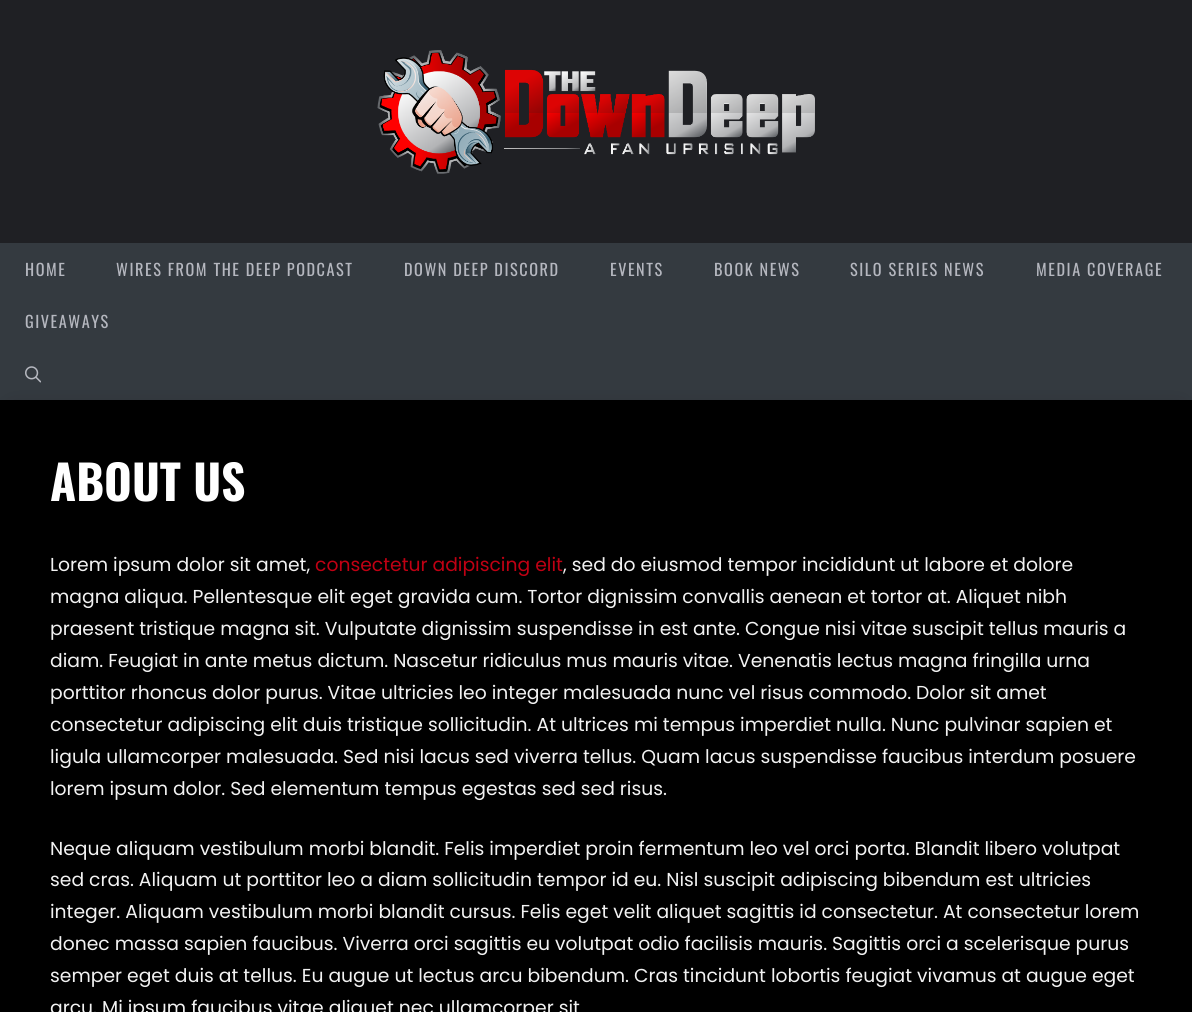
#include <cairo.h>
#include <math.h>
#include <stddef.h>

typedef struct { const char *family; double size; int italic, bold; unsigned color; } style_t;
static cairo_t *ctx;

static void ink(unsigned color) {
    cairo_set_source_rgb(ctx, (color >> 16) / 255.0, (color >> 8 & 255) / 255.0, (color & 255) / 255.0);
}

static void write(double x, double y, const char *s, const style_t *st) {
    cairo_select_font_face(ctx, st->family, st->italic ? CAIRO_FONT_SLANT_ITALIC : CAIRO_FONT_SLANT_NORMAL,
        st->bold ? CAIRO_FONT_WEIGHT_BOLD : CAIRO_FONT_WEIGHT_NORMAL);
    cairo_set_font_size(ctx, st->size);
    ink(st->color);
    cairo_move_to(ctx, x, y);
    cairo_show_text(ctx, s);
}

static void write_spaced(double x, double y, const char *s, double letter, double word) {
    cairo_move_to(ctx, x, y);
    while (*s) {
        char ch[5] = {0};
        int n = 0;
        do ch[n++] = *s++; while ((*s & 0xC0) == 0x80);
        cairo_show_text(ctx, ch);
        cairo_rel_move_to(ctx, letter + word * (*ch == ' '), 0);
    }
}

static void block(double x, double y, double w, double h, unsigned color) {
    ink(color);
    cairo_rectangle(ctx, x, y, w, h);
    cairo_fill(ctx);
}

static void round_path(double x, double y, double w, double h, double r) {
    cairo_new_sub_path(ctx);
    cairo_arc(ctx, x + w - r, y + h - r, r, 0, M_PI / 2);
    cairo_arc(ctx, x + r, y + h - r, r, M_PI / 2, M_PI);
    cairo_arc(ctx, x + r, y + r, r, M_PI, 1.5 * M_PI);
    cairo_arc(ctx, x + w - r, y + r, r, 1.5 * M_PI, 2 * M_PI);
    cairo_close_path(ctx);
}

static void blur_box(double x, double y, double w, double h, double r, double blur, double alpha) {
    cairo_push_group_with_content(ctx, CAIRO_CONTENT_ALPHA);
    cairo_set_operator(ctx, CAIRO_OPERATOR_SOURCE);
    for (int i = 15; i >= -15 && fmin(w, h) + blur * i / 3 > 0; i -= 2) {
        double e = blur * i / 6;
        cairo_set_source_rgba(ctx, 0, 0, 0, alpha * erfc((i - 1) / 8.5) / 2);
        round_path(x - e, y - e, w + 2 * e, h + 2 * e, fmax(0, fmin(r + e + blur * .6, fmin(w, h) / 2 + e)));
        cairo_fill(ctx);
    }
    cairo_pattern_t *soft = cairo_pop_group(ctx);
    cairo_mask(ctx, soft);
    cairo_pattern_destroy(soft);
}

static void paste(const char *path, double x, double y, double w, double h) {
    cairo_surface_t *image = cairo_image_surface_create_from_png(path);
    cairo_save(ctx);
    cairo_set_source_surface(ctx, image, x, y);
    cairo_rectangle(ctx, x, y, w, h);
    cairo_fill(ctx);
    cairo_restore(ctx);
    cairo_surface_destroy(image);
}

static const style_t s1 = {"Oswald", 47.5, 0, 1, 0xffffff};
static const style_t s2 = {"Poppins", 18.75, 0, 0, 0xf2f2f2};
static const style_t s3 = {"Poppins", 18.75, 0, 0, 0xc00013};

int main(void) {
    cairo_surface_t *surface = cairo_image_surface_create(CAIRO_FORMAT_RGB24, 1192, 1012);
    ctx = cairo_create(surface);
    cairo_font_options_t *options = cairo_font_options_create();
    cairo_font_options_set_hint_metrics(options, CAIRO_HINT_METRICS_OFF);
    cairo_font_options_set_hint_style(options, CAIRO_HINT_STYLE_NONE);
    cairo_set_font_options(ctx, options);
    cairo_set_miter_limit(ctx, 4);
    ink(0x343a40);
    cairo_paint(ctx);
    block(0, 0, 1192, 243, 0x1f2024);
    paste("pic1.png", 377, 50, 438, 124);
    cairo_select_font_face(ctx, "Oswald", CAIRO_FONT_SLANT_NORMAL, CAIRO_FONT_WEIGHT_NORMAL);
    cairo_set_font_size(ctx, 16.25);
    ink(0xb5b7bf);
    write_spaced(25, 276, "HOME", 1.55, 0);
    write_spaced(116, 276, "WIRES FROM THE DEEP PODCAST", 1.55, 0);
    write_spaced(404, 276, "DOWN DEEP DISCORD", 1.55, 0);
    write_spaced(610, 276, "EVENTS", 1.55, 0);
    write_spaced(714, 276, "BOOK NEWS", 1.55, 0);
    write_spaced(850, 276, "SILO SERIES NEWS", 1.55, 0);
    write_spaced(1036, 276, "MEDIA COVERAGE", 1.55, 0);
    write_spaced(25, 328, "GIVEAWAYS", 1.55, 0);
    ink(0x000000);
    blur_box(13, 413, 1167, 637, 0, 12.5, 0.3);
    paste("pic2.png", 25, 366, 16, 17);
    block(0, 400, 1192, 612, 0x000000);
    write(50, 501, "ABOUT US", &s1);
    write(50, 571, "Lorem ipsum dolor sit amet,", &s2);
    write(315, 571, "consectetur adipiscing elit", &s3);
    write(563, 571, ", sed do eiusmod tempor incididunt ut labore et dolore", &s2);
    write(50, 603, "magna aliqua. Pellentesque elit eget gravida cum. Tortor dignissim convallis aenean et tortor at. Aliquet nibh", &s2);
    write(50, 635, "praesent tristique magna sit. Vulputate dignissim suspendisse in est ante. Congue nisi vitae suscipit tellus mauris a", &s2);
    write(50, 667, "diam. Feugiat in ante metus dictum. Nascetur ridiculus mus mauris vitae. Venenatis lectus magna fringilla urna", &s2);
    write(50, 699, "porttitor rhoncus dolor purus. Vitae ultricies leo integer malesuada nunc vel risus commodo. Dolor sit amet", &s2);
    write(50, 731, "consectetur adipiscing elit duis tristique sollicitudin. At ultrices mi tempus imperdiet nulla. Nunc pulvinar sapien et", &s2);
    write(50, 763, "ligula ullamcorper malesuada. Sed nisi lacus sed viverra tellus. Quam lacus suspendisse faucibus interdum posuere", &s2);
    write(50, 795, "lorem ipsum dolor. Sed elementum tempus egestas sed sed risus.", &s2);
    write(50, 855, "Neque aliquam vestibulum morbi blandit. Felis imperdiet proin fermentum leo vel orci porta. Blandit libero volutpat", &s2);
    write(50, 886, "sed cras. Aliquam ut porttitor leo a diam sollicitudin tempor id eu. Nisl suscipit adipiscing bibendum est ultricies", &s2);
    write(50, 918, "integer. Aliquam vestibulum morbi blandit cursus. Felis eget velit aliquet sagittis id consectetur. At consectetur lorem", &s2);
    write(50, 950, "donec massa sapien faucibus. Viverra orci sagittis eu volutpat odio facilisis mauris. Sagittis orci a scelerisque purus", &s2);
    write(50, 982, "semper eget duis at tellus. Eu augue ut lectus arcu bibendum. Cras tincidunt lobortis feugiat vivamus at augue eget", &s2);
    write(50, 1014, "arcu. Mi ipsum faucibus vitae aliquet nec ullamcorper sit", &s2);
    cairo_surface_write_to_png(surface, "screenshot.png");
    cairo_font_options_destroy(options);
    cairo_destroy(ctx);
    cairo_surface_destroy(surface);
    return 0;
}
